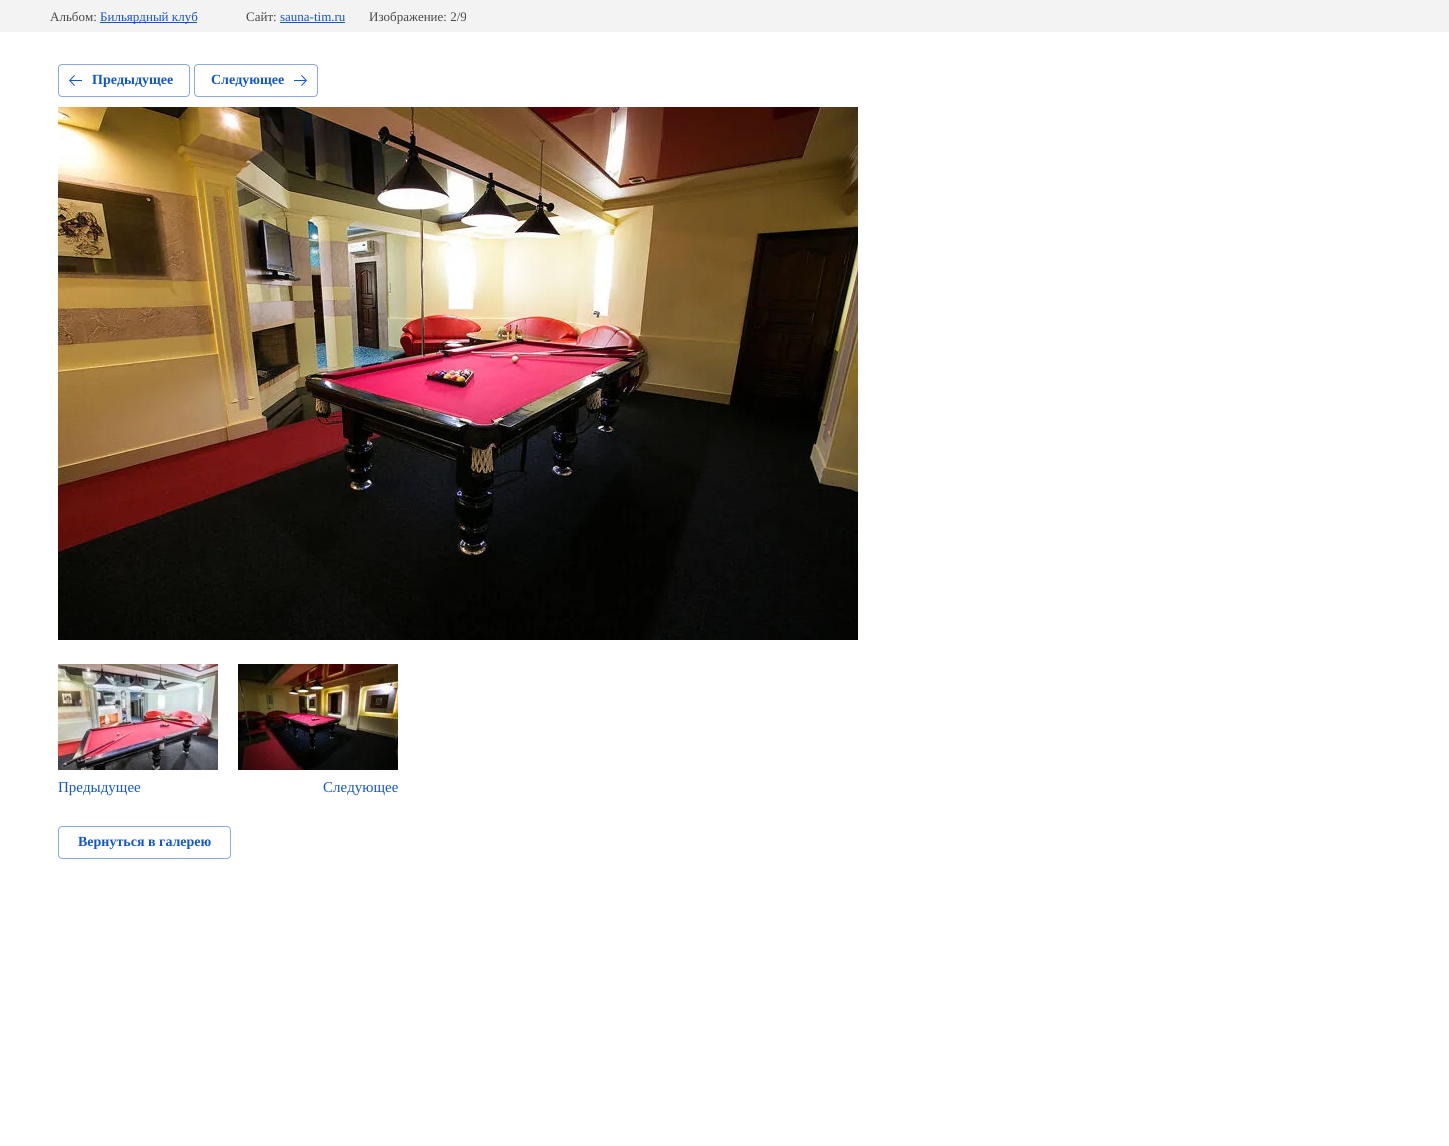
#include <cairo.h>
#include <math.h>
#include <stddef.h>

typedef struct { const char *family; double size; int italic, bold; unsigned color; } style_t;
static cairo_t *ctx;

static void ink(unsigned color) {
    cairo_set_source_rgb(ctx, (color >> 16) / 255.0, (color >> 8 & 255) / 255.0, (color & 255) / 255.0);
}

static void write(double x, double y, const char *s, const style_t *st) {
    cairo_select_font_face(ctx, st->family, st->italic ? CAIRO_FONT_SLANT_ITALIC : CAIRO_FONT_SLANT_NORMAL,
        st->bold ? CAIRO_FONT_WEIGHT_BOLD : CAIRO_FONT_WEIGHT_NORMAL);
    cairo_set_font_size(ctx, st->size);
    ink(st->color);
    cairo_move_to(ctx, x, y);
    cairo_show_text(ctx, s);
}

static void block(double x, double y, double w, double h, unsigned color) {
    ink(color);
    cairo_rectangle(ctx, x, y, w, h);
    cairo_fill(ctx);
}

static void round_path(double x, double y, double w, double h, double r) {
    cairo_new_sub_path(ctx);
    cairo_arc(ctx, x + w - r, y + h - r, r, 0, M_PI / 2);
    cairo_arc(ctx, x + r, y + h - r, r, M_PI / 2, M_PI);
    cairo_arc(ctx, x + r, y + r, r, M_PI, 1.5 * M_PI);
    cairo_arc(ctx, x + w - r, y + r, r, 1.5 * M_PI, 2 * M_PI);
    cairo_close_path(ctx);
}

static void paste(const char *path, double x, double y, double w, double h) {
    cairo_surface_t *image = cairo_image_surface_create_from_png(path);
    cairo_save(ctx);
    cairo_set_source_surface(ctx, image, x, y);
    cairo_rectangle(ctx, x, y, w, h);
    cairo_fill(ctx);
    cairo_restore(ctx);
    cairo_surface_destroy(image);
}

static const style_t s1 = {"Liberation Serif", 13, 0, 0, 0x484848};
static const style_t s2 = {"Liberation Serif", 13, 0, 0, 0x1155cc};
static const style_t s3 = {"Liberation Serif", 14, 0, 1, 0x1155cc};
static const style_t s4 = {"Liberation Serif", 15, 0, 0, 0x1155cc};

int main(void) {
    cairo_surface_t *surface = cairo_image_surface_create(CAIRO_FORMAT_RGB24, 1449, 1146);
    ctx = cairo_create(surface);
    cairo_font_options_t *options = cairo_font_options_create();
    cairo_font_options_set_hint_metrics(options, CAIRO_HINT_METRICS_OFF);
    cairo_font_options_set_hint_style(options, CAIRO_HINT_STYLE_NONE);
    cairo_set_font_options(ctx, options);
    cairo_set_miter_limit(ctx, 4);
    ink(0xffffff);
    cairo_paint(ctx);
    block(0, 0, 1449, 32, 0xf3f3f3);
    write(50, 21, "Альбом:", &s1);
    block(100, 22, 97, 1, 0x1155cc);
    write(100, 21, "Бильярдный клуб", &s2);
    write(246, 21, "Сайт:", &s1);
    write(280, 21, "sauna-tim.ru", &s2);
    block(280, 22, 65, 1, 0x1155cc);
    write(369, 21, "Изображение: 2/9", &s1);
    round_path(58.5, 64.5, 131, 32, 3.5);
    ink(0x88aae6);
    cairo_set_line_width(ctx, 1);
    cairo_stroke(ctx);
    paste("pic1.png", 69, 75, 13, 11);
    write(92, 84, "Предыдущее", &s3);
    round_path(194.5, 64.5, 123, 32, 3.5);
    ink(0x88aae6);
    cairo_stroke(ctx);
    write(211, 84, "Следующее", &s3);
    paste("pic2.png", 294, 75, 13, 11);
    paste("pic3.png", 58, 107, 800, 533);
    paste("pic4.png", 58, 664, 160, 106);
    write(58, 792, "Предыдущее", &s4);
    paste("pic5.png", 238, 664, 160, 106);
    write(323, 792, "Следующее", &s4);
    round_path(58.5, 826.5, 172, 32, 3.5);
    ink(0x88aae6);
    cairo_stroke(ctx);
    write(78, 846, "Вернуться в галерею", &s3);
    cairo_surface_write_to_png(surface, "screenshot.png");
    cairo_font_options_destroy(options);
    cairo_destroy(ctx);
    cairo_surface_destroy(surface);
    return 0;
}
